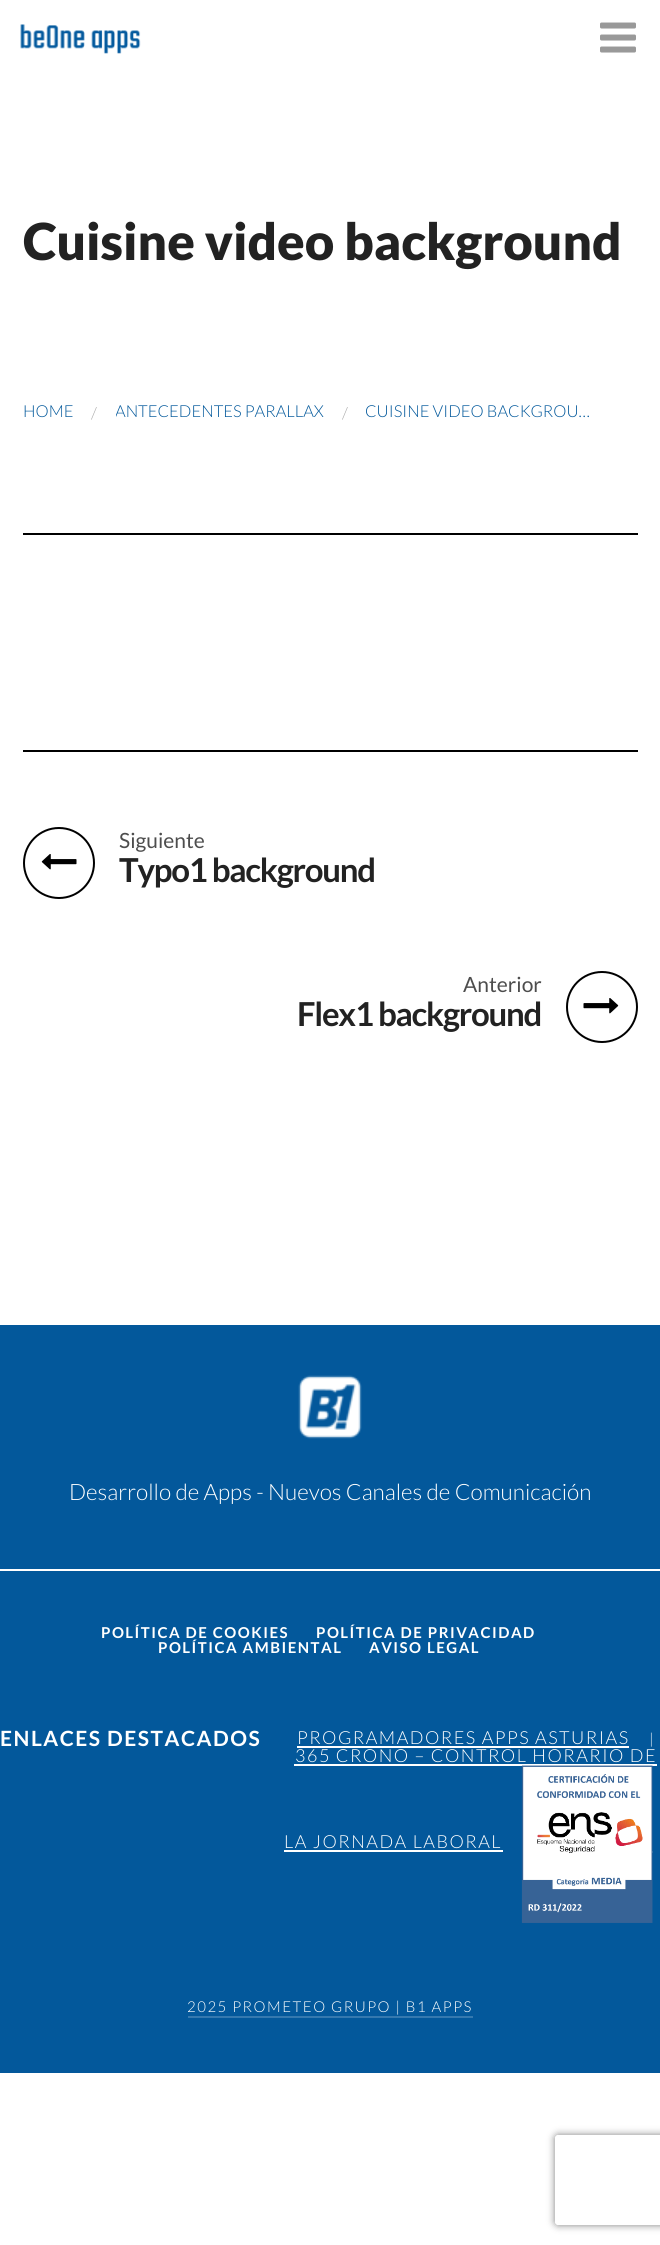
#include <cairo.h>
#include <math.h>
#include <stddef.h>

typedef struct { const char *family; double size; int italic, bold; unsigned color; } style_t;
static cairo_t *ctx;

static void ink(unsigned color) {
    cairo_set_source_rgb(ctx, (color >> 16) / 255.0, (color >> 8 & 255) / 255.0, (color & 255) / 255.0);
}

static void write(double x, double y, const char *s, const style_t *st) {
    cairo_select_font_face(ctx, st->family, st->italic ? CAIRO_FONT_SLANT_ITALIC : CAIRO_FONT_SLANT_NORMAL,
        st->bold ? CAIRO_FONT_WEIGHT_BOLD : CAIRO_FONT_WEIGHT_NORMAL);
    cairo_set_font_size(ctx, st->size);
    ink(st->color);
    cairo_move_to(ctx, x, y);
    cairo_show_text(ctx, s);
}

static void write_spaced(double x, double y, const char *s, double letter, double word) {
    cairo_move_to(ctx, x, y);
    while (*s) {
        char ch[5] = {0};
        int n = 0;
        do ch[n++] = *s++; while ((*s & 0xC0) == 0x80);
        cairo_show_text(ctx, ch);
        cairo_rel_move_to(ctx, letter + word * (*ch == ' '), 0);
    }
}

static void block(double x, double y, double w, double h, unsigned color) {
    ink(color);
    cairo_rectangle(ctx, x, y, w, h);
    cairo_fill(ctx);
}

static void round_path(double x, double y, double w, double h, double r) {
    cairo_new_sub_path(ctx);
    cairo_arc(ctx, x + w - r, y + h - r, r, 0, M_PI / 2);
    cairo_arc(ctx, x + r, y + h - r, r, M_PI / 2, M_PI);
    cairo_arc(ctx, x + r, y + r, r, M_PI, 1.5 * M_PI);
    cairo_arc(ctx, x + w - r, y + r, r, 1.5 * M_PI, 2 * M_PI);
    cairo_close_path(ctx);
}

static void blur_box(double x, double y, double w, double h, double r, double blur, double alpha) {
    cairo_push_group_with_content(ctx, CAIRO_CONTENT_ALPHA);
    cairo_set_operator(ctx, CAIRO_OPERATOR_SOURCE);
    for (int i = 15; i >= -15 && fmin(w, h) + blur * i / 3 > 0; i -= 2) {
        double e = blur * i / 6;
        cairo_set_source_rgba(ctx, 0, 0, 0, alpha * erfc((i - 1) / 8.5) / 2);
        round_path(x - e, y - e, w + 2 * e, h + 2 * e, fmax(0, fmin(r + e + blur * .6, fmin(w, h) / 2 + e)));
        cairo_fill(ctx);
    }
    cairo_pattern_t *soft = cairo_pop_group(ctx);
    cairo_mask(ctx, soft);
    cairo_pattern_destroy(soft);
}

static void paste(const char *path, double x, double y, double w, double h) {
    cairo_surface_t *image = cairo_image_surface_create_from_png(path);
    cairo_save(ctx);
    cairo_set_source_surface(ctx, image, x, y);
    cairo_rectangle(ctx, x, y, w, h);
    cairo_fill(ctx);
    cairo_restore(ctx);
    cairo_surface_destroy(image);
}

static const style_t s1 = {"Lato Black", 51, 0, 0, 0x222222};
static const style_t s2 = {"Lato Light", 16.5, 0, 0, 0x02589b};
static const style_t s3 = {"Lato Light", 16.5, 0, 0, 0xaaaaaa};
static const style_t s4 = {"Lato", 21, 0, 0, 0x4d4d4d};
static const style_t s5 = {"Lato Light", 22.5, 0, 0, 0xffffff};

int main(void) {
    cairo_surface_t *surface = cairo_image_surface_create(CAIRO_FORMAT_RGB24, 660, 2245);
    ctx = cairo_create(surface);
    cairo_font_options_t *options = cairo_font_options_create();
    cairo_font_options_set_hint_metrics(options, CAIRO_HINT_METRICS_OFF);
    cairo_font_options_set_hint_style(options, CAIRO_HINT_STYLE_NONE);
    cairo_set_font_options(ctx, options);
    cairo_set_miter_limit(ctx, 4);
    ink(0xffffff);
    cairo_paint(ctx);
    paste("pic1.png", 20, 24, 121, 30);
    paste("pic2.png", 600, 22, 36, 31);
    write(23, 260, "Cuisine video background", &s1);
    write(23, 417, "HOME", &s2);
    write(91, 419, "/", &s3);
    cairo_save(ctx);
    cairo_rectangle(ctx, 116, 395, 208, 33);
    cairo_clip(ctx);
    write(115, 417, "ANTECEDENTES PARALLAX", &s2);
    cairo_restore(ctx);
    write(342, 419, "/", &s3);
    write(365, 417, "CUISINE VIDEO BACKGROU…", &s2);
    block(23, 533, 615, 2, 0x000000);
    block(23, 750, 615, 2, 0x000000);
    cairo_new_path(ctx);
    cairo_arc(ctx, 59, 863, 35, 0, 2 * M_PI);
    cairo_stroke(ctx);
    paste("pic3.png", 41, 854, 36, 16);
    write(119, 848, "Siguiente", &s4);
    cairo_select_font_face(ctx, "Lato", CAIRO_FONT_SLANT_NORMAL, CAIRO_FONT_WEIGHT_BOLD);
    cairo_set_font_size(ctx, 33);
    ink(0x222222);
    write_spaced(119, 882, "Typo1 background", -1.25, 0);
    write(463, 992, "Anterior", &s4);
    cairo_select_font_face(ctx, "Lato", CAIRO_FONT_SLANT_NORMAL, CAIRO_FONT_WEIGHT_BOLD);
    cairo_set_font_size(ctx, 33);
    ink(0x222222);
    write_spaced(297, 1026, "Flex1 background", -1.25, 0);
    cairo_new_path(ctx);
    cairo_arc(ctx, 602, 1007, 35, 0, 2 * M_PI);
    ink(0x000000);
    cairo_stroke(ctx);
    paste("pic4.png", 583, 998, 36, 16);
    block(0, 1325, 660, 748, 0x03589b);
    paste("pic5.png", 298, 1375, 64, 64);
    write(69, 1500, "Desarrollo de Apps - Nuevos Canales de Comunicación", &s5);
    block(0, 1569, 660, 2, 0xffffff);
    cairo_select_font_face(ctx, "Lato", CAIRO_FONT_SLANT_NORMAL, CAIRO_FONT_WEIGHT_BOLD);
    cairo_set_font_size(ctx, 15);
    write_spaced(101, 1638, "POLÍTICA DE COOKIES", 1.5, 0);
    write_spaced(316, 1638, "POLÍTICA DE PRIVACIDAD", 1.5, 0);
    write_spaced(158, 1653, "POLÍTICA AMBIENTAL", 1.5, 0);
    write_spaced(369, 1653, "AVISO LEGAL", 1.5, 0);
    cairo_set_font_size(ctx, 21);
    write_spaced(0, 1746, "ENLACES DESTACADOS", 1.5, 0);
    cairo_select_font_face(ctx, "Lato Light", CAIRO_FONT_SLANT_NORMAL, CAIRO_FONT_WEIGHT_NORMAL);
    cairo_set_font_size(ctx, 18);
    write_spaced(297, 1744, "PROGRAMADORES APPS ASTURIAS", 1.5, 0);
    block(297, 1746, 332, 2, 0xffffff);
    cairo_set_font_size(ctx, 15);
    write_spaced(649, 1744, "|", 1.5, 0);
    cairo_set_font_size(ctx, 18);
    write_spaced(295, 1762, "365 CRONO – CONTROL HORARIO DE", 1.5, 0);
    block(294, 1764, 363, 2, 0xffffff);
    write_spaced(284, 1848, "LA JORNADA LABORAL", 1.5, 0);
    block(284, 1850, 219, 2, 0xffffff);
    block(652, 1851, 1, 2, 0x3579af);
    paste("pic6.png", 521, 1765, 132, 158);
    cairo_set_font_size(ctx, 15);
    ink(0xffffff);
    write_spaced(187, 2012, "2025 PROMETEO GRUPO | B1 APPS", 1.5, 0);
    block(188, 2016, 285, 2, 0x3579af);
    cairo_save(ctx);
    cairo_set_fill_rule(ctx, CAIRO_FILL_RULE_EVEN_ODD);
    cairo_new_path(ctx);
    cairo_move_to(ctx, 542, 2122);
    cairo_line_to(ctx, 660, 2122);
    cairo_line_to(ctx, 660, 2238);
    cairo_line_to(ctx, 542, 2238);
    cairo_close_path(ctx);
    cairo_move_to(ctx, 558, 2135);
    cairo_line_to(ctx, 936, 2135);
    cairo_curve_to(ctx, 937.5, 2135, 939, 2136.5, 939, 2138);
    cairo_line_to(ctx, 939, 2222);
    cairo_curve_to(ctx, 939, 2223.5, 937.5, 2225, 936, 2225);
    cairo_line_to(ctx, 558, 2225);
    cairo_curve_to(ctx, 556.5, 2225, 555, 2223.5, 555, 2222);
    cairo_line_to(ctx, 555, 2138);
    cairo_curve_to(ctx, 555, 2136.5, 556.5, 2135, 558, 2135);
    cairo_close_path(ctx);
    cairo_clip(ctx);
    ink(0x808080);
    blur_box(555, 2135, 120, 90, 3, 4, 1);
    cairo_restore(ctx);
    cairo_surface_write_to_png(surface, "screenshot.png");
    cairo_font_options_destroy(options);
    cairo_destroy(ctx);
    cairo_surface_destroy(surface);
    return 0;
}
